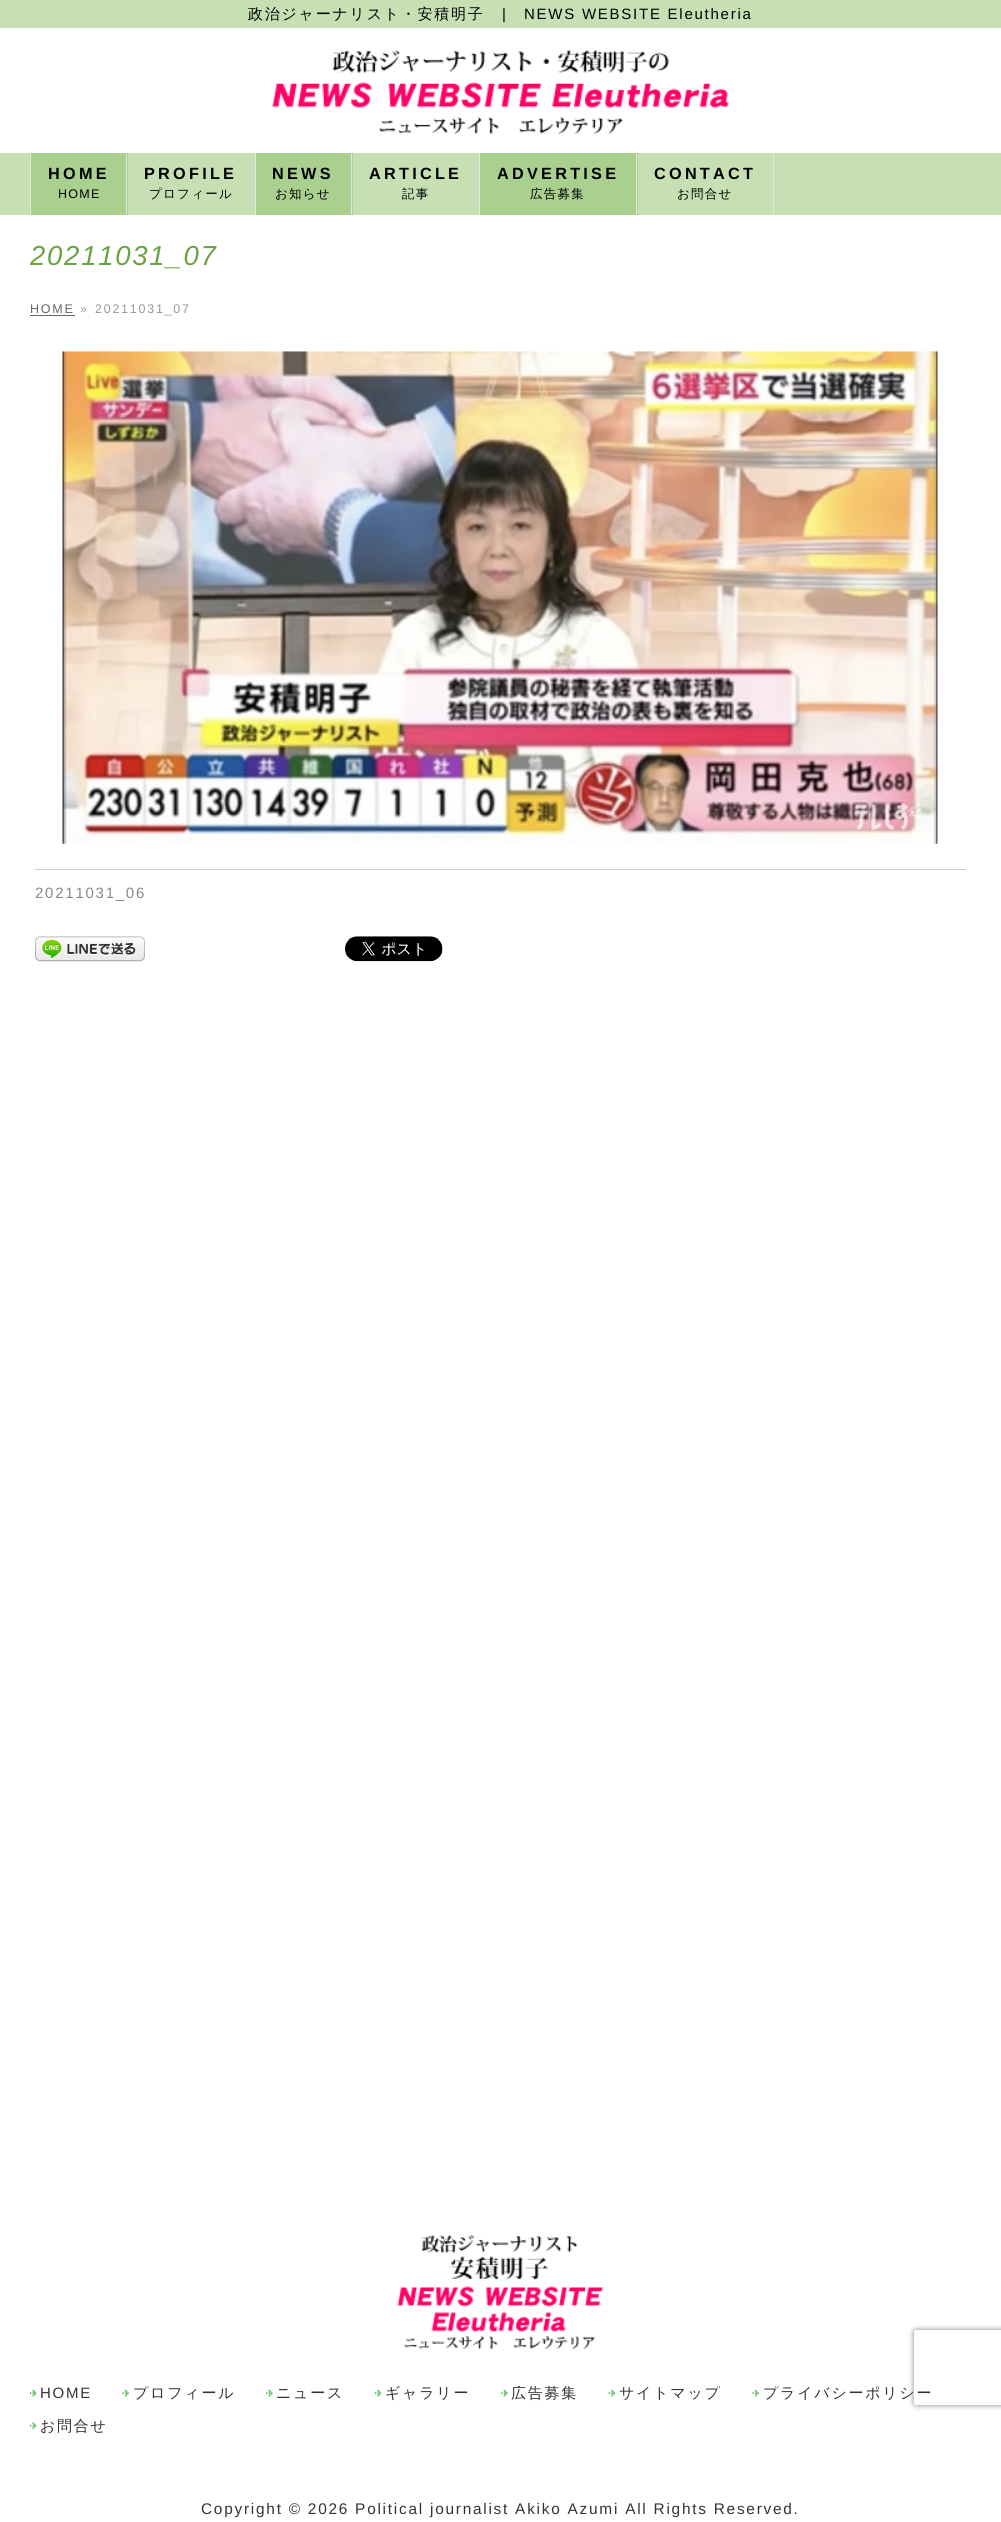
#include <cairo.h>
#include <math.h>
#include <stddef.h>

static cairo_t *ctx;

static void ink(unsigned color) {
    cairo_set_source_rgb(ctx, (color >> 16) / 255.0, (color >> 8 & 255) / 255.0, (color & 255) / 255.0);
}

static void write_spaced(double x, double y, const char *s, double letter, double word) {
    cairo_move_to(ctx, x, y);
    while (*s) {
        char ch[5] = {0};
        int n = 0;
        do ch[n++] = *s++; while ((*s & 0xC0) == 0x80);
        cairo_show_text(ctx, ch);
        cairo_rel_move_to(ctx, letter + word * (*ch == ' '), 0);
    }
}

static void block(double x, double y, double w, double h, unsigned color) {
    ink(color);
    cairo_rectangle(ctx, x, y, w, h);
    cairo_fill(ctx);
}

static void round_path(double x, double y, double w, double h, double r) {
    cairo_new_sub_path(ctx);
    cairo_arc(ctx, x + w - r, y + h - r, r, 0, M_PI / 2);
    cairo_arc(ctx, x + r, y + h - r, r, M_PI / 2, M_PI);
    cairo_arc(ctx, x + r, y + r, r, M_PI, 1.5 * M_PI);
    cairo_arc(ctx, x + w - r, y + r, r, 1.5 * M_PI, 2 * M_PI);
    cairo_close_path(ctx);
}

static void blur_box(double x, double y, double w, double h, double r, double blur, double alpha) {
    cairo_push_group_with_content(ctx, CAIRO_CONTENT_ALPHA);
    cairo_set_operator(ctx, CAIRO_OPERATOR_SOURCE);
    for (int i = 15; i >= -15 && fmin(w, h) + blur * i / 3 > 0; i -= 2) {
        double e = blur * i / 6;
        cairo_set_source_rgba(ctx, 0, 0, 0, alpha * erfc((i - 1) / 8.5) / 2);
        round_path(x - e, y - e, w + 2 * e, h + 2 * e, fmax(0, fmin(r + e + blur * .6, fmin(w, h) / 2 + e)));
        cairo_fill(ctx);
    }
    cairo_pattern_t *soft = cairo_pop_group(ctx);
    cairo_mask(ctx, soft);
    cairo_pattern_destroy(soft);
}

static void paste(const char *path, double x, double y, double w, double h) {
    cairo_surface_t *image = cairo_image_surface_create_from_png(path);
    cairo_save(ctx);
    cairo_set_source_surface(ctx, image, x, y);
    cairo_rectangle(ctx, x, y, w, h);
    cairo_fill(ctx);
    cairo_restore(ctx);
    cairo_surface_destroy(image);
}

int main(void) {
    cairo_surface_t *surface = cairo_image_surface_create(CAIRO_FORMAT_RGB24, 1001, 2522);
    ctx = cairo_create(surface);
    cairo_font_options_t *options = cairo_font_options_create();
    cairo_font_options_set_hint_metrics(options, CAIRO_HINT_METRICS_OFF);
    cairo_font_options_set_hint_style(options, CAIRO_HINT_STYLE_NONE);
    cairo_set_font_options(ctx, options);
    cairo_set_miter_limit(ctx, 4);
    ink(0xffffff);
    cairo_paint(ctx);
    block(0, 0, 1001, 28, 0xc6e0b4);
    cairo_select_font_face(ctx, "WenQuanYi Zen Hei Medium", CAIRO_FONT_SLANT_NORMAL, CAIRO_FONT_WEIGHT_NORMAL);
    cairo_set_font_size(ctx, 15);
    ink(0x000000);
    write_spaced(248, 19, "政治ジャーナリスト・安積明子", 1.75, 0);
    cairo_select_font_face(ctx, "Liberation Sans", CAIRO_FONT_SLANT_NORMAL, CAIRO_FONT_WEIGHT_NORMAL);
    write_spaced(502, 19, "|", 1.75, 0);
    write_spaced(524, 19, "NEWS WEBSITE Eleutheria", 1.75, 0);
    paste("pic1.png", 272, 50, 457, 84);
    block(0, 153, 1001, 62, 0xc6e0b4);
    block(30, 153, 1, 62, 0xe5e5e5);
    block(31, 153, 97, 62, 0xa9d08e);
    block(126, 153, 1, 62, 0xe5e5e5);
    cairo_select_font_face(ctx, "Liberation Sans", CAIRO_FONT_SLANT_NORMAL, CAIRO_FONT_WEIGHT_BOLD);
    cairo_set_font_size(ctx, 16.25);
    ink(0x000000);
    write_spaced(48, 179, "HOME", 3.25, 0);
    cairo_select_font_face(ctx, "Liberation Sans", CAIRO_FONT_SLANT_NORMAL, CAIRO_FONT_WEIGHT_NORMAL);
    cairo_set_font_size(ctx, 12.5);
    write_spaced(58, 198, "HOME", 1.25, 0);
    block(255, 153, 1, 62, 0xe5e5e5);
    cairo_select_font_face(ctx, "Liberation Sans", CAIRO_FONT_SLANT_NORMAL, CAIRO_FONT_WEIGHT_BOLD);
    cairo_set_font_size(ctx, 16.25);
    ink(0x000000);
    write_spaced(144, 179, "PROFILE", 3.25, 0);
    cairo_select_font_face(ctx, "WenQuanYi Zen Hei Medium", CAIRO_FONT_SLANT_NORMAL, CAIRO_FONT_WEIGHT_NORMAL);
    cairo_set_font_size(ctx, 12.5);
    write_spaced(149, 198, "プロフィール", 1.25, 0);
    block(256, 153, 97, 62, 0xa9d08e);
    block(351, 153, 1, 62, 0xe5e5e5);
    cairo_select_font_face(ctx, "Liberation Sans", CAIRO_FONT_SLANT_NORMAL, CAIRO_FONT_WEIGHT_BOLD);
    cairo_set_font_size(ctx, 16.25);
    ink(0x000000);
    write_spaced(272, 179, "NEWS", 3.25, 0);
    cairo_select_font_face(ctx, "WenQuanYi Zen Hei Medium", CAIRO_FONT_SLANT_NORMAL, CAIRO_FONT_WEIGHT_NORMAL);
    cairo_set_font_size(ctx, 12.5);
    write_spaced(275, 198, "お知らせ", 1.25, 0);
    block(479, 153, 1, 62, 0xe5e5e5);
    cairo_select_font_face(ctx, "Liberation Sans", CAIRO_FONT_SLANT_NORMAL, CAIRO_FONT_WEIGHT_BOLD);
    cairo_set_font_size(ctx, 16.25);
    ink(0x000000);
    write_spaced(369, 179, "ARTICLE", 3.25, 0);
    cairo_select_font_face(ctx, "WenQuanYi Zen Hei Medium", CAIRO_FONT_SLANT_NORMAL, CAIRO_FONT_WEIGHT_NORMAL);
    cairo_set_font_size(ctx, 12.5);
    write_spaced(402, 198, "記事", 1.25, 0);
    block(480, 153, 158, 62, 0xa9d08e);
    block(636, 153, 1, 62, 0xe5e5e5);
    cairo_select_font_face(ctx, "Liberation Sans", CAIRO_FONT_SLANT_NORMAL, CAIRO_FONT_WEIGHT_BOLD);
    cairo_set_font_size(ctx, 16.25);
    ink(0x000000);
    write_spaced(497, 179, "ADVERTISE", 3.25, 0);
    cairo_select_font_face(ctx, "WenQuanYi Zen Hei Medium", CAIRO_FONT_SLANT_NORMAL, CAIRO_FONT_WEIGHT_NORMAL);
    cairo_set_font_size(ctx, 12.5);
    write_spaced(530, 198, "広告募集", 1.25, 0);
    block(773, 153, 1, 62, 0xe5e5e5);
    cairo_select_font_face(ctx, "Liberation Sans", CAIRO_FONT_SLANT_NORMAL, CAIRO_FONT_WEIGHT_BOLD);
    cairo_set_font_size(ctx, 16.25);
    ink(0x000000);
    write_spaced(654, 179, "CONTACT", 3.25, 0);
    cairo_select_font_face(ctx, "WenQuanYi Zen Hei Medium", CAIRO_FONT_SLANT_NORMAL, CAIRO_FONT_WEIGHT_NORMAL);
    cairo_set_font_size(ctx, 12.5);
    write_spaced(677, 198, "お問合せ", 1.25, 0);
    cairo_select_font_face(ctx, "Liberation Sans", CAIRO_FONT_SLANT_ITALIC, CAIRO_FONT_WEIGHT_NORMAL);
    cairo_set_font_size(ctx, 27.5);
    ink(0x69a343);
    write_spaced(30, 265, "20211031_07", 1.75, 0);
    cairo_select_font_face(ctx, "Liberation Sans", CAIRO_FONT_SLANT_NORMAL, CAIRO_FONT_WEIGHT_NORMAL);
    cairo_set_font_size(ctx, 12.5);
    ink(0x666666);
    write_spaced(30, 313, "HOME", 1.75, 0);
    block(30, 315, 45, 1, 0x666666);
    ink(0x999999);
    write_spaced(80, 313, "»", 1.75, 0);
    write_spaced(95, 313, "20211031_07", 1.75, 0);
    paste("pic2.png", 62, 351, 876, 493);
    block(35, 869, 931, 1, 0xcccccc);
    cairo_set_font_size(ctx, 15);
    ink(0x888888);
    write_spaced(35, 898, "20211031_06", 1.75, 0);
    paste("pic3.png", 35, 936, 110, 26);
    paste("pic4.png", 345, 936, 98, 26);
    paste("pic5.png", 397, 2235, 206, 114);
    paste("pic6.png", 30, 2390, 7, 7);
    ink(0x333333);
    write_spaced(40, 2398, "HOME", 1.75, 0);
    paste("pic7.png", 122, 2390, 7, 7);
    cairo_save(ctx);
    cairo_rectangle(ctx, 123, 2386, 137, 23);
    cairo_clip(ctx);
    cairo_select_font_face(ctx, "WenQuanYi Zen Hei Medium", CAIRO_FONT_SLANT_NORMAL, CAIRO_FONT_WEIGHT_NORMAL);
    write_spaced(133, 2398, "プロフィール", 1.75, 0);
    cairo_restore(ctx);
    paste("pic8.png", 266, 2390, 7, 7);
    cairo_select_font_face(ctx, "WenQuanYi Zen Hei Medium", CAIRO_FONT_SLANT_NORMAL, CAIRO_FONT_WEIGHT_NORMAL);
    write_spaced(276, 2398, "ニュース", 1.75, 0);
    paste("pic9.png", 375, 2390, 7, 7);
    write_spaced(385, 2398, "ギャラリー", 1.75, 0);
    paste("pic8.png", 501, 2390, 7, 7);
    cairo_save(ctx);
    cairo_rectangle(ctx, 501, 2386, 103, 23);
    cairo_clip(ctx);
    write_spaced(511, 2398, "広告募集", 1.75, 0);
    cairo_restore(ctx);
    paste("pic10.png", 608, 2390, 7, 7);
    cairo_save(ctx);
    cairo_rectangle(ctx, 609, 2386, 137, 23);
    cairo_clip(ctx);
    write_spaced(619, 2398, "サイトマップ", 1.75, 0);
    cairo_restore(ctx);
    paste("pic7.png", 752, 2390, 7, 7);
    cairo_save(ctx);
    cairo_rectangle(ctx, 753, 2386, 205, 23);
    cairo_clip(ctx);
    write_spaced(763, 2398, "プライバシーポリシー", 1.75, 0);
    cairo_restore(ctx);
    paste("pic11.png", 30, 2422, 7, 7);
    write_spaced(40, 2431, "お問合せ", 1.75, 0);
    cairo_select_font_face(ctx, "Liberation Sans", CAIRO_FONT_SLANT_NORMAL, CAIRO_FONT_WEIGHT_NORMAL);
    cairo_set_font_size(ctx, 15.4);
    write_spaced(201, 2514, "Copyright © 2026 Political journalist Akiko Azumi All Rights Reserved.", 1.75, 0);
    cairo_save(ctx);
    cairo_set_fill_rule(ctx, CAIRO_FILL_RULE_EVEN_ODD);
    cairo_new_path(ctx);
    cairo_move_to(ctx, 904, 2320);
    cairo_line_to(ctx, 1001, 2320);
    cairo_line_to(ctx, 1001, 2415);
    cairo_line_to(ctx, 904, 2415);
    cairo_close_path(ctx);
    cairo_move_to(ctx, 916.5, 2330);
    cairo_line_to(ctx, 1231.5, 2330);
    cairo_curve_to(ctx, 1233, 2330, 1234, 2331, 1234, 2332.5);
    cairo_line_to(ctx, 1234, 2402.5);
    cairo_curve_to(ctx, 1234, 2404, 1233, 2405, 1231.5, 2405);
    cairo_line_to(ctx, 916.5, 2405);
    cairo_curve_to(ctx, 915, 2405, 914, 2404, 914, 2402.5);
    cairo_line_to(ctx, 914, 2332.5);
    cairo_curve_to(ctx, 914, 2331, 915, 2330, 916.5, 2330);
    cairo_close_path(ctx);
    cairo_clip(ctx);
    ink(0x808080);
    blur_box(914, 2330, 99, 75, 2.5, 3, 1);
    cairo_restore(ctx);
    cairo_surface_write_to_png(surface, "screenshot.png");
    cairo_font_options_destroy(options);
    cairo_destroy(ctx);
    cairo_surface_destroy(surface);
    return 0;
}
